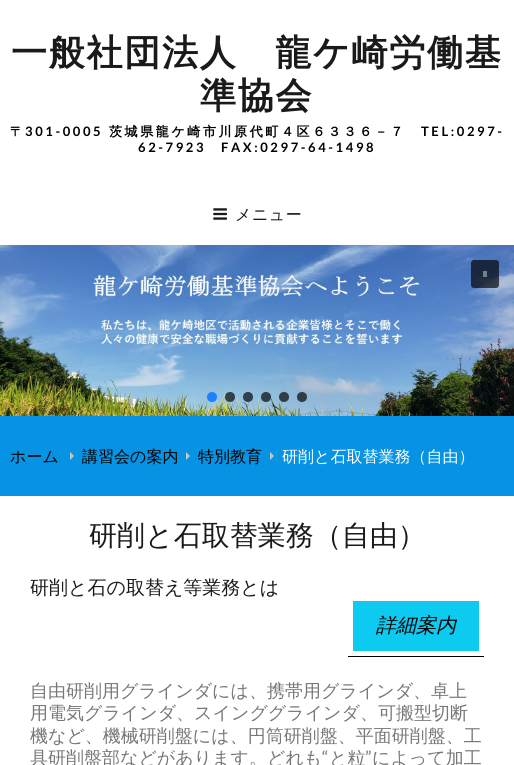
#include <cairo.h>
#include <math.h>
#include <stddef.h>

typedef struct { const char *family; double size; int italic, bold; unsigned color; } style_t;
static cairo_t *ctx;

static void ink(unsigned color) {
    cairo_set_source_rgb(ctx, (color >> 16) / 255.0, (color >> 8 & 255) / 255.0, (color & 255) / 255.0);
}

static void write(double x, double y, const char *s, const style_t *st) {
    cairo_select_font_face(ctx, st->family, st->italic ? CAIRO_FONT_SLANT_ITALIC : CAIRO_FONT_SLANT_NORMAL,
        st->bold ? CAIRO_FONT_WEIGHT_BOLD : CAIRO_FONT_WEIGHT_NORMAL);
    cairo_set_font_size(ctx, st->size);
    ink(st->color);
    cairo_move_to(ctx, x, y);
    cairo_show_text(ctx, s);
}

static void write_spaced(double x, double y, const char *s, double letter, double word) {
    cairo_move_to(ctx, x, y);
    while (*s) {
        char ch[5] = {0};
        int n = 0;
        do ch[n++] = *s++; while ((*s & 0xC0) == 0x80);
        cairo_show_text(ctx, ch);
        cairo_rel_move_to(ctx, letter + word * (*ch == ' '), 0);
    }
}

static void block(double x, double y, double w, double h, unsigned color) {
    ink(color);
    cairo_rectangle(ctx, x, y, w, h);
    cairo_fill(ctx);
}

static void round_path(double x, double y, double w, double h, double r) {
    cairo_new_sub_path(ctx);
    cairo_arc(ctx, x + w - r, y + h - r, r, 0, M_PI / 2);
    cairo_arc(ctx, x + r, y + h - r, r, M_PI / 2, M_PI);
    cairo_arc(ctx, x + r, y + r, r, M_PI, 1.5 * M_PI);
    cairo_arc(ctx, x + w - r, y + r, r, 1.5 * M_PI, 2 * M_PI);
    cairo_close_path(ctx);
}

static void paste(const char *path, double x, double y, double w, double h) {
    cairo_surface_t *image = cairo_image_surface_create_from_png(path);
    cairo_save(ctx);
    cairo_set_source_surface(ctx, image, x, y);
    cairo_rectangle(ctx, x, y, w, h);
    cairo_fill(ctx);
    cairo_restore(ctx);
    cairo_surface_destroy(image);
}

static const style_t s1 = {"WenQuanYi Zen Hei Medium", 16, 0, 0, 0x000000};
static const style_t s2 = {"WenQuanYi Zen Hei Medium", 16, 0, 0, 0xffffff};
static const style_t s3 = {"WenQuanYi Zen Hei Medium", 28, 0, 0, 0x1a1a1a};
static const style_t s4 = {"WenQuanYi Zen Hei Medium", 19, 0, 0, 0x1a1a1a};
static const style_t s5 = {"WenQuanYi Zen Hei Medium", 20, 1, 0, 0x000000};
static const style_t s6 = {"WenQuanYi Zen Hei Medium", 18, 0, 0, 0x777777};
static const style_t s7 = {"Lato", 18, 0, 0, 0x777777};

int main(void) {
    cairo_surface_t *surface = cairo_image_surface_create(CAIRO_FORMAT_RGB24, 514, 765);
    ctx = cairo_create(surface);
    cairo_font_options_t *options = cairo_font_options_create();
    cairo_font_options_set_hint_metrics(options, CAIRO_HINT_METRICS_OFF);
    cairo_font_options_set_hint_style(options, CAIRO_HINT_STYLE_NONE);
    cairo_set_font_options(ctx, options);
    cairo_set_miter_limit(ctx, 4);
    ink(0xffffff);
    cairo_paint(ctx);
    cairo_select_font_face(ctx, "WenQuanYi Zen Hei", CAIRO_FONT_SLANT_NORMAL, CAIRO_FONT_WEIGHT_BOLD);
    cairo_set_font_size(ctx, 36);
    ink(0x1a1a1a);
    write_spaced(11, 65, "一般社団法人　龍ケ崎労働基", 1.75, 0);
    write_spaced(200, 108, "準協会", 1.75, 0);
    cairo_set_font_size(ctx, 13);
    ink(0x000000);
    write_spaced(10, 136, "〒", 2.6, 0);
    cairo_select_font_face(ctx, "Lato", CAIRO_FONT_SLANT_NORMAL, CAIRO_FONT_WEIGHT_BOLD);
    write_spaced(25, 136, "301-0005", 2.6, 0);
    cairo_select_font_face(ctx, "WenQuanYi Zen Hei", CAIRO_FONT_SLANT_NORMAL, CAIRO_FONT_WEIGHT_BOLD);
    write_spaced(109, 136, "茨城県龍ケ崎市川原代町４区６３３６－７", 2.6, 0);
    cairo_select_font_face(ctx, "Lato", CAIRO_FONT_SLANT_NORMAL, CAIRO_FONT_WEIGHT_BOLD);
    write_spaced(421, 136, "TEL:0297-", 2.6, 0);
    write_spaced(138, 152, "62-7923", 2.6, 0);
    write_spaced(221, 152, "FAX:0297-64-1498", 2.6, 0);
    paste("pic1.png", 213, 208, 14, 12);
    cairo_select_font_face(ctx, "WenQuanYi Zen Hei Medium", CAIRO_FONT_SLANT_NORMAL, CAIRO_FONT_WEIGHT_NORMAL);
    cairo_set_font_size(ctx, 16);
    ink(0x1a1a1a);
    write_spaced(235, 220, "メニュー", 0.5, 0);
    paste("pic2.png", 0, 245, 514, 171);
    cairo_set_source_rgba(ctx, 0, 0, 0, 0.67);
    round_path(471, 260, 28, 28, 3);
    cairo_fill(ctx);
    cairo_set_source_rgba(ctx, 1, 1, 1, 0.4);
    cairo_rectangle(ctx, 483, 271, 4, 6);
    cairo_fill(ctx);
    ink(0x1d81f9);
    cairo_arc(ctx, 212, 397, 5, 0, 2 * M_PI);
    cairo_fill(ctx);
    cairo_set_source_rgba(ctx, 0, 0, 0, 0.67);
    cairo_arc(ctx, 230, 397, 5, 0, 2 * M_PI);
    cairo_fill(ctx);
    cairo_arc(ctx, 248, 397, 5, 0, 2 * M_PI);
    cairo_fill(ctx);
    cairo_arc(ctx, 266, 397, 5, 0, 2 * M_PI);
    cairo_fill(ctx);
    cairo_arc(ctx, 284, 397, 5, 0, 2 * M_PI);
    cairo_fill(ctx);
    cairo_arc(ctx, 302, 397, 5, 0, 2 * M_PI);
    cairo_fill(ctx);
    block(0, 416, 514, 80, 0x0693e3);
    write(10, 462, "ホーム", &s1);
    ink(0xc5c5c5);
    cairo_new_path(ctx);
    cairo_move_to(ctx, 70, 460);
    cairo_line_to(ctx, 70, 452);
    cairo_line_to(ctx, 74, 456);
    cairo_close_path(ctx);
    cairo_fill(ctx);
    write(82, 462, "講習会の案内", &s1);
    ink(0xc5c5c5);
    cairo_new_path(ctx);
    cairo_move_to(ctx, 186, 460);
    cairo_line_to(ctx, 186, 452);
    cairo_line_to(ctx, 190, 456);
    cairo_close_path(ctx);
    cairo_fill(ctx);
    write(198, 462, "特別教育", &s1);
    ink(0xc5c5c5);
    cairo_new_path(ctx);
    cairo_move_to(ctx, 270, 460);
    cairo_line_to(ctx, 270, 452);
    cairo_line_to(ctx, 274, 456);
    cairo_close_path(ctx);
    cairo_fill(ctx);
    write(282, 462, "研削と石取替業務（自由）", &s2);
    write(89, 545, "研削と石取替業務（自由）", &s3);
    write(30, 594, "研削と石の取替え等業務とは", &s4);
    block(348, 656, 136, 1, 0x000000);
    block(353, 601, 126, 50, 0x0dcaf0);
    write(376, 632, "詳細案内", &s5);
    write(30, 697, "自由研削用グラインダには、携帯用グラインダ、卓上", &s6);
    write(30, 719, "用電気グラインダ、スインググラインダ、可搬型切断", &s6);
    write(30, 742, "機など、機械研削盤には、円筒研削盤、平面研削盤、工", &s6);
    write(30, 764, "具研削盤部などがあります。どれも", &s6);
    write(322, 764, "“", &s7);
    write(329, 764, "と粒", &s6);
    write(365, 764, "”", &s7);
    write(372, 764, "によって加工", &s6);
    cairo_surface_write_to_png(surface, "screenshot.png");
    cairo_font_options_destroy(options);
    cairo_destroy(ctx);
    cairo_surface_destroy(surface);
    return 0;
}
